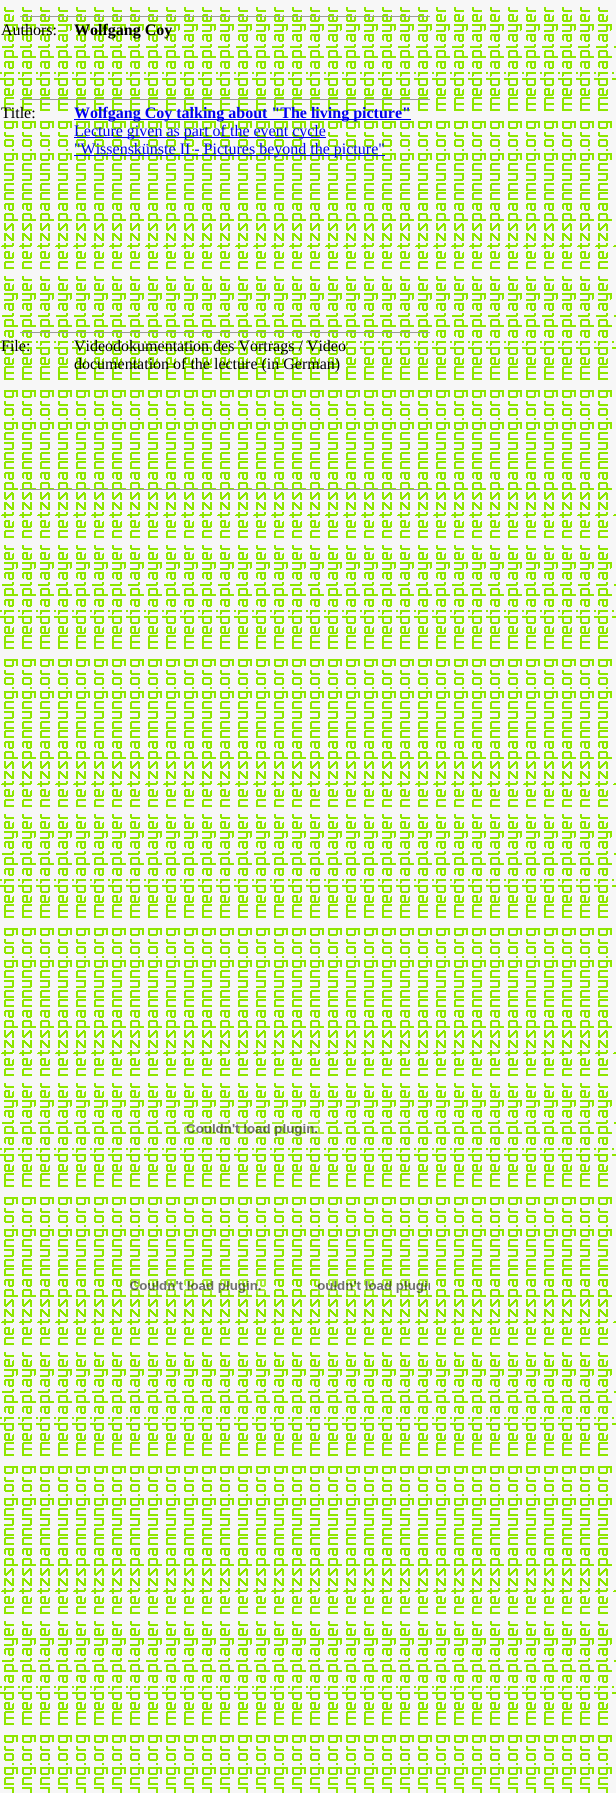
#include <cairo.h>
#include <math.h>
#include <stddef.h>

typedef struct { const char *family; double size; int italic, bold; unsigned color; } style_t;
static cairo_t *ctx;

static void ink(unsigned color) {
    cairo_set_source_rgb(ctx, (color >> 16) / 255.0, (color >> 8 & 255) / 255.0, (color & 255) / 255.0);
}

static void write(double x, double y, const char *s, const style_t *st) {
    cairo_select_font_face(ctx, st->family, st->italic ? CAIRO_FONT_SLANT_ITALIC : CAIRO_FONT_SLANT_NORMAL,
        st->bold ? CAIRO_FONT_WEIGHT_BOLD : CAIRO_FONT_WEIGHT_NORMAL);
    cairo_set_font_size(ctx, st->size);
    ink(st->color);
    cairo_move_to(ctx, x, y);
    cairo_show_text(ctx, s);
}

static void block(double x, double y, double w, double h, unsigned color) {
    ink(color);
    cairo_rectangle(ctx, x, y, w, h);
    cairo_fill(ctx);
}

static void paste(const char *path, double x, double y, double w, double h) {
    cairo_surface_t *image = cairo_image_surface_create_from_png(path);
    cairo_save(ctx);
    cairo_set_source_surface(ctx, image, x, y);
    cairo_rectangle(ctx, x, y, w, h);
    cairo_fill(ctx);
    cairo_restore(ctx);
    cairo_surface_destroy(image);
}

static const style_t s1 = {"Liberation Serif", 16, 0, 0, 0x000000};
static const style_t s2 = {"Liberation Serif", 16, 0, 1, 0x000000};
static const style_t s3 = {"Liberation Serif", 16, 0, 1, 0x0000ee};
static const style_t s4 = {"Liberation Serif", 16, 0, 0, 0x0000ee};

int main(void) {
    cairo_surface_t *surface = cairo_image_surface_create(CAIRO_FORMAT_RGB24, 616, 1793);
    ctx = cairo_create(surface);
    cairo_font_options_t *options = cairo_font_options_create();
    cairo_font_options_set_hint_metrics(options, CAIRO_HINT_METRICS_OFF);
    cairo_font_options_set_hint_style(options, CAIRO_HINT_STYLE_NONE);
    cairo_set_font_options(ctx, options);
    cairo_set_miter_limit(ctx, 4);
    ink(0xf7f7f7);
    cairo_paint(ctx);
    paste("pic1.png", 0, 7, 616, 1786);
    block(20, 16, 410, 1, 0x999999);
    write(1, 35, "Authors:", &s1);
    write(74, 35, "Wolfgang Coy", &s2);
    block(20, 99, 410, 1, 0x999999);
    write(1, 118, "Title:", &s1);
    block(74, 119, 337, 1, 0x0000ee);
    write(74, 118, "Wolfgang Coy talking about \"The living picture\"", &s3);
    block(74, 137, 252, 1, 0x0000ee);
    write(74, 136, "Lecture given as part of the event cycle", &s4);
    block(74, 155, 311, 1, 0x0000ee);
    write(74, 154, "\"Wissenskünste II - Pictures beyond the picture\"", &s4);
    block(20, 332, 410, 1, 0x999999);
    write(1, 351, "File:", &s1);
    write(74, 351, "Videodokumentation des Vortrags / Video", &s1);
    write(74, 369, "documentation of the lecture (in German)", &s1);
    block(20, 489, 410, 1, 0x999999);
    paste("pic2.png", 182, 1120, 142, 18);
    paste("pic3.png", 130, 1279, 136, 15);
    paste("pic4.png", 317, 1279, 113, 15);
    cairo_surface_write_to_png(surface, "screenshot.png");
    cairo_font_options_destroy(options);
    cairo_destroy(ctx);
    cairo_surface_destroy(surface);
    return 0;
}
